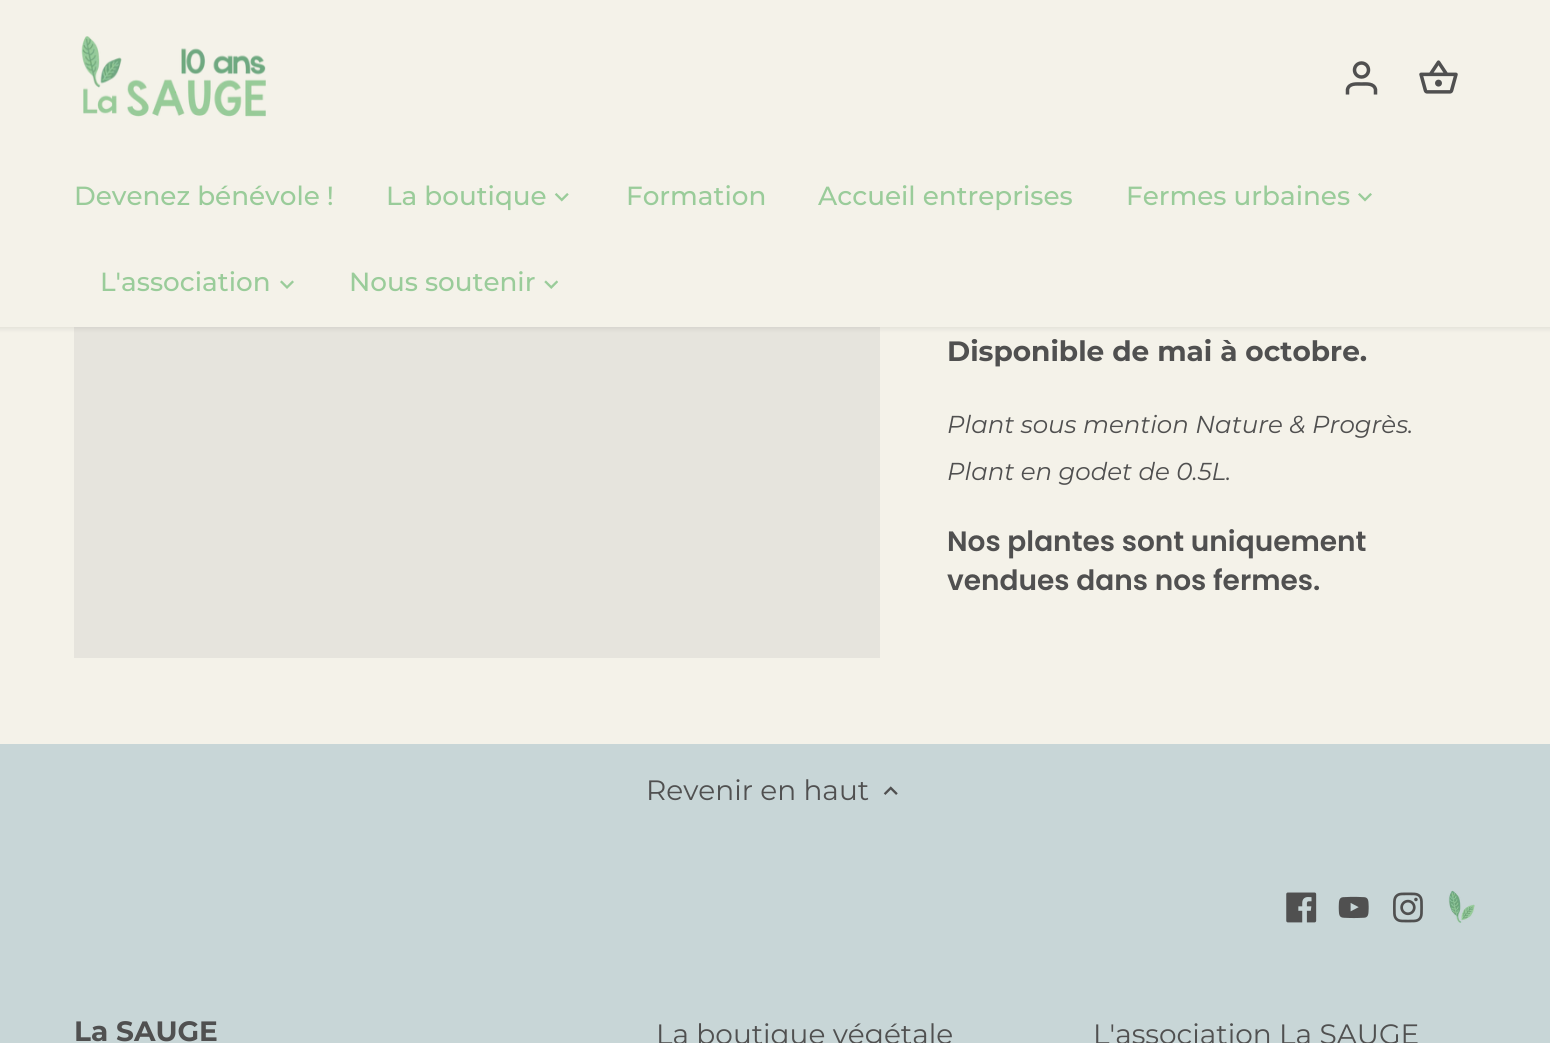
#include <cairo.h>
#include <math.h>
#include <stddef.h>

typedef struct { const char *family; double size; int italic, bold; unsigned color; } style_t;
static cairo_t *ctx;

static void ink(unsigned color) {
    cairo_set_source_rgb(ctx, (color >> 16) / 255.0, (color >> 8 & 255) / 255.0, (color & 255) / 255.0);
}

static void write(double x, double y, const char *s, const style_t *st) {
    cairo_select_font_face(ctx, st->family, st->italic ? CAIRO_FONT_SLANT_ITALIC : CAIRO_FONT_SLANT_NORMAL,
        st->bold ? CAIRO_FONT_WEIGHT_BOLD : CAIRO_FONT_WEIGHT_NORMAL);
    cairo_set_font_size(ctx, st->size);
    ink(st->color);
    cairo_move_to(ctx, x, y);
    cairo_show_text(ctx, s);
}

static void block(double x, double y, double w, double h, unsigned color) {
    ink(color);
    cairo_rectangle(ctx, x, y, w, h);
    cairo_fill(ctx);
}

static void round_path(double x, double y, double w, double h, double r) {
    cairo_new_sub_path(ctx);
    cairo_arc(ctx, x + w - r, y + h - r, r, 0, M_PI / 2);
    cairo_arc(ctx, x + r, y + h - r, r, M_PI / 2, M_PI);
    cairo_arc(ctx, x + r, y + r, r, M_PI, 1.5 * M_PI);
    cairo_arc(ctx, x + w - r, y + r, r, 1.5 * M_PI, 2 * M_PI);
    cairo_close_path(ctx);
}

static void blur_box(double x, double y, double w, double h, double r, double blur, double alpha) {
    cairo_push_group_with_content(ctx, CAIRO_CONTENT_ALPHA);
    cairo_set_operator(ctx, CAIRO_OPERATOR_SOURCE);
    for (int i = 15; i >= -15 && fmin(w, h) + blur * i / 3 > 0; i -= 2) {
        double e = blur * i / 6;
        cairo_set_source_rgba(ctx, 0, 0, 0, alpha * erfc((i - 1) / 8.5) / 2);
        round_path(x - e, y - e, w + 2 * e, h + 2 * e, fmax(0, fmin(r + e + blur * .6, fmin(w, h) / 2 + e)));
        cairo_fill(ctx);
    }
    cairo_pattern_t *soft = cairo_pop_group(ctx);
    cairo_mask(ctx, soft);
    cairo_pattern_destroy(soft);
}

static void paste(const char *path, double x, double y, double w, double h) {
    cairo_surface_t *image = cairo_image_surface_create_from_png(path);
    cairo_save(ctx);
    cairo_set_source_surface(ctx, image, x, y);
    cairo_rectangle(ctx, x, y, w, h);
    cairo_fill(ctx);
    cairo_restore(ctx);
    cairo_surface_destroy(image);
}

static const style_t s1 = {"Montserrat Medium", 26.25, 0, 0, 0x9acc9a};
static const style_t s2 = {"Montserrat", 28, 0, 1, 0x505050};
static const style_t s3 = {"Montserrat", 24.5, 1, 0, 0x505050};
static const style_t s4 = {"Poppins SemiBold", 28, 0, 0, 0x505050};
static const style_t s5 = {"Montserrat", 28, 0, 0, 0x505050};

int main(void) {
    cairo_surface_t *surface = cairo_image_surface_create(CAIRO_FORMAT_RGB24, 1550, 1043);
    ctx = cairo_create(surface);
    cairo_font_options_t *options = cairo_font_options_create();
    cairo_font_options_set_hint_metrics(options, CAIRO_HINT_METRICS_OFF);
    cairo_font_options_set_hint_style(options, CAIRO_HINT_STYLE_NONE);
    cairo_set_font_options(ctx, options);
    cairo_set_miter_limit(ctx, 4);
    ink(0xc8d6d7);
    cairo_paint(ctx);
    block(0, 327, 1550, 417, 0xf4f2e9);
    block(74, 327, 806, 331, 0xe6e4dd);
    ink(0x000000);
    blur_box(-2, -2, 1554, 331, 0, 2.5, 0.08);
    block(0, 0, 1550, 327, 0xf4f2e9);
    paste("pic1.png", 81, 36, 185, 81);
    cairo_arc(ctx, 1361.5, 70, 7, 0, 2 * M_PI);
    ink(0x505050);
    cairo_set_line_width(ctx, 3.5);
    cairo_stroke(ctx);
    cairo_new_path(ctx);
    cairo_move_to(ctx, 1375.5, 94.5);
    cairo_line_to(ctx, 1375.5, 89.5);
    cairo_curve_to(ctx, 1374, 83, 1366.5, 84, 1361.5, 84);
    cairo_curve_to(ctx, 1356.5, 84, 1349, 83, 1347.5, 89.5);
    cairo_line_to(ctx, 1347.5, 94.5);
    cairo_stroke(ctx);
    paste("pic2.png", 1419, 60, 39, 34);
    write(74, 205, "Devenez bénévole !", &s1);
    write(386, 205, "La boutique", &s1);
    paste("pic3.png", 554, 193, 15, 9);
    write(626, 205, "Formation", &s1);
    write(818, 205, "Accueil entreprises", &s1);
    write(1126, 205, "Fermes urbaines", &s1);
    paste("pic4.png", 1358, 193, 14, 9);
    write(100, 291, "L'association", &s1);
    paste("pic5.png", 280, 280, 14, 9);
    write(349, 291, "Nous soutenir", &s1);
    paste("pic6.png", 544, 280, 14, 9);
    write(947, 361, "Disponible de mai à octobre.", &s2);
    write(947, 433, "Plant sous mention Nature & Progrès.", &s3);
    write(947, 480, "Plant en godet de 0.5L.", &s3);
    write(947, 551, "Nos plantes sont uniquement", &s4);
    write(947, 590, "vendues dans nos fermes.", &s4);
    write(646, 800, "Revenir en haut", &s5);
    paste("pic7.png", 883, 786, 15, 9);
    paste("pic8.png", 1286, 892, 31, 31);
    paste("pic9.png", 1338, 896, 31, 23);
    paste("pic10.png", 1393, 892, 30, 31);
    paste("pic11.png", 1448, 890, 27, 33);
    write(74, 1041, "La SAUGE", &s2);
    write(656, 1044, "La boutique végétale", &s5);
    write(1093, 1044, "L'association La SAUGE", &s5);
    cairo_surface_write_to_png(surface, "screenshot.png");
    cairo_font_options_destroy(options);
    cairo_destroy(ctx);
    cairo_surface_destroy(surface);
    return 0;
}
